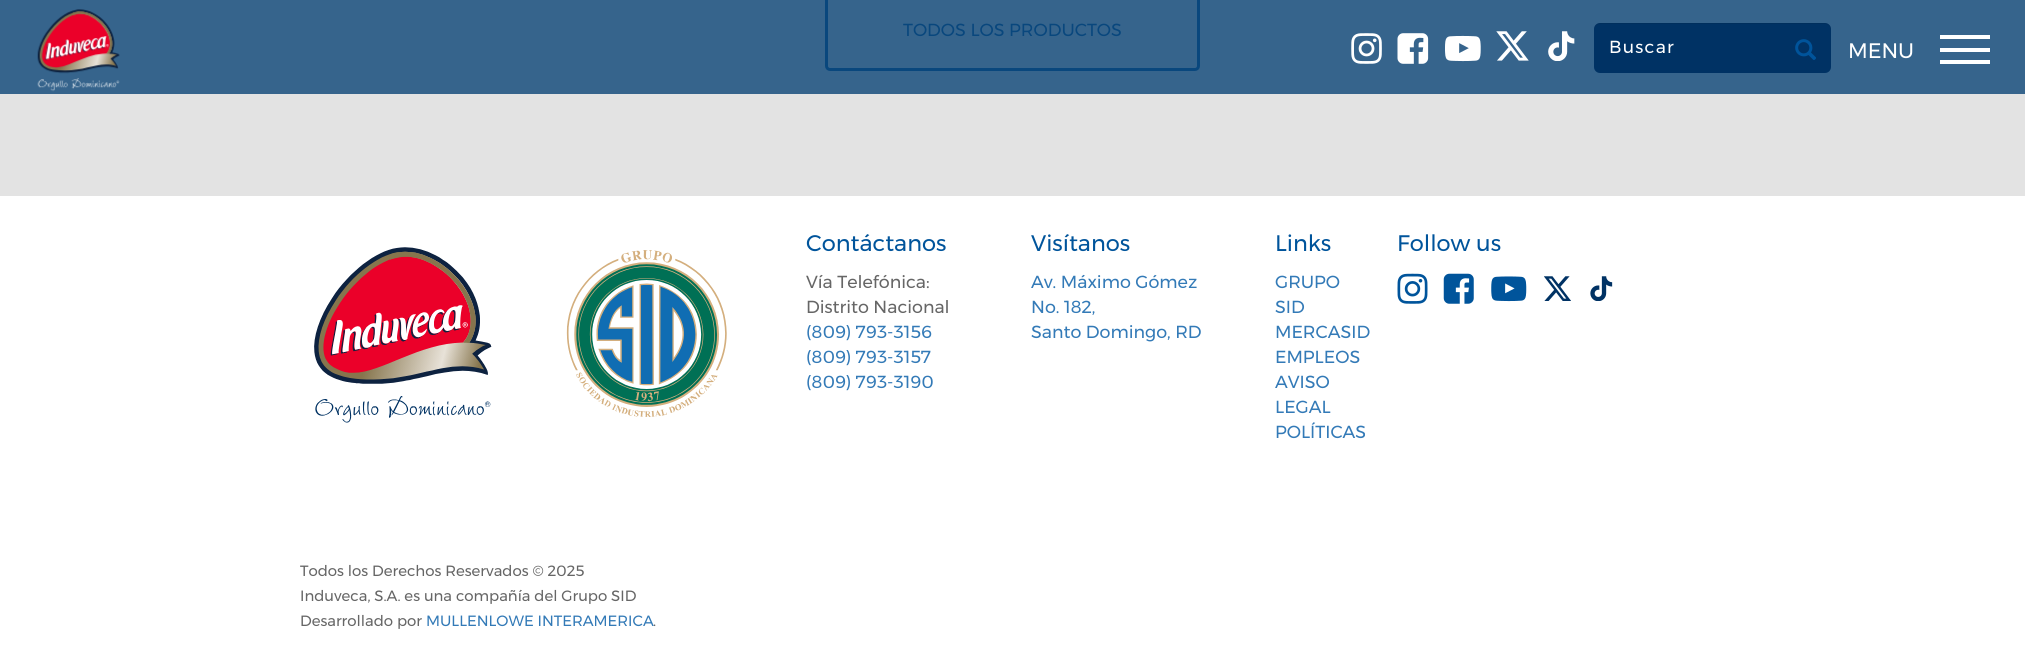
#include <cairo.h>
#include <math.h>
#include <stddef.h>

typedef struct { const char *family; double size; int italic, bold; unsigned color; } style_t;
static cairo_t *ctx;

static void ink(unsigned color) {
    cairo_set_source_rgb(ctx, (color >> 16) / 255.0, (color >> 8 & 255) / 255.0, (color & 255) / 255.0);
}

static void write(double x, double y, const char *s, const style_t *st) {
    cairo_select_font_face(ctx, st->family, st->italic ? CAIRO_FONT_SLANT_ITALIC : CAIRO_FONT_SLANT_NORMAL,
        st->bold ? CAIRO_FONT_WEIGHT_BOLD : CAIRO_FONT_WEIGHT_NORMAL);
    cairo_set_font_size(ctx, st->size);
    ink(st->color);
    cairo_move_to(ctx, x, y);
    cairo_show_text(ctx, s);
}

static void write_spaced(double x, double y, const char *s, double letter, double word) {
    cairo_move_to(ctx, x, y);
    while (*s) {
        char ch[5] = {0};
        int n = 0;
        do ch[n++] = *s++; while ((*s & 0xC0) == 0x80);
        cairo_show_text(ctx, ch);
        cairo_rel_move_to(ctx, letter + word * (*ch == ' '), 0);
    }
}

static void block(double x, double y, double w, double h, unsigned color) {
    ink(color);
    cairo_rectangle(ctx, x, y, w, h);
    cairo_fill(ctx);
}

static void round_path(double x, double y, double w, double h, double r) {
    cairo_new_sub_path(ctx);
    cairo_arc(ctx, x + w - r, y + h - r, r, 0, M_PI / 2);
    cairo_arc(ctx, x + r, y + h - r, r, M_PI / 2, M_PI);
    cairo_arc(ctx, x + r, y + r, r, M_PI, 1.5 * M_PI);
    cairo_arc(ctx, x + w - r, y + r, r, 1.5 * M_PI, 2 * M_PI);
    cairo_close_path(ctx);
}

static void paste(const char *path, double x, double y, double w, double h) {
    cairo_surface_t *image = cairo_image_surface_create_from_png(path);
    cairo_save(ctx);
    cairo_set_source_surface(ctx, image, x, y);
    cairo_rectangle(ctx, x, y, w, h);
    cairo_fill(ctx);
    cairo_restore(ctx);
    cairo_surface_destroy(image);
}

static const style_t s1 = {"Montserrat", 17.5, 0, 0, 0x09477d};
static const style_t s2 = {"Montserrat", 21, 0, 0, 0xffffff};
static const style_t s3 = {"Montserrat", 22.5, 0, 0, 0x00549b};
static const style_t s4 = {"Montserrat", 17.5, 0, 0, 0x666666};
static const style_t s5 = {"Montserrat", 17.5, 0, 0, 0x337ab7};
static const style_t s6 = {"Montserrat", 14.9, 0, 0, 0x666666};
static const style_t s7 = {"Montserrat", 14.9, 0, 0, 0x337ab7};

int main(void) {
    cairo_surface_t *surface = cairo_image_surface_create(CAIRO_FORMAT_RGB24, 2025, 658);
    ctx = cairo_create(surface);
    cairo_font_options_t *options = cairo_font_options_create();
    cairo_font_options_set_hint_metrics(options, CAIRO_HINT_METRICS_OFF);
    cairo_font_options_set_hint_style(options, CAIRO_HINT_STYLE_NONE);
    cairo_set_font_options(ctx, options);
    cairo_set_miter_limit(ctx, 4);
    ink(0xffffff);
    cairo_paint(ctx);
    block(0, 94, 2025, 102, 0xe3e3e3);
    block(0, 0, 2025, 94, 0x36648c);
    round_path(826.5, -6.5, 372, 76, 3.5);
    ink(0x09477d);
    cairo_set_line_width(ctx, 3);
    cairo_stroke(ctx);
    write(903, 36, "TODOS LOS PRODUCTOS", &s1);
    paste("pic1.png", 37, 9, 83, 83);
    paste("pic2.png", 1351, 33, 31, 31);
    paste("pic3.png", 1397, 33, 32, 31);
    paste("pic4.png", 1445, 35, 36, 27);
    paste("pic5.png", 1496, 31, 33, 30);
    paste("pic6.png", 1548, 31, 27, 30);
    ink(0x003264);
    round_path(1594, 23, 237, 50, 6);
    cairo_fill(ctx);
    cairo_set_source_rgba(ctx, 0, 0, 0, 0.07);
    cairo_new_path(ctx);
    cairo_move_to(ctx, 1600, 24);
    cairo_line_to(ctx, 1825, 24);
    cairo_curve_to(ctx, 1828, 24, 1831, 27, 1831, 30);
    cairo_line_to(ctx, 1831, 29);
    cairo_curve_to(ctx, 1831, 26, 1828, 23, 1825, 23);
    cairo_line_to(ctx, 1600, 23);
    cairo_curve_to(ctx, 1597, 23, 1594, 26, 1594, 29);
    cairo_line_to(ctx, 1594, 30);
    cairo_curve_to(ctx, 1594, 27, 1597, 24, 1600, 24);
    cairo_close_path(ctx);
    cairo_fill(ctx);
    ink(0xffffff);
    write_spaced(1609, 53, "Buscar", 1.25, 0);
    paste("pic7.png", 1795, 39, 21, 21);
    write(1848, 58, "MENU", &s2);
    block(1940, 48, 50, 4, 0xffffff);
    block(1940, 35, 50, 4, 0xffffff);
    block(1940, 60, 50, 4, 0xffffff);
    write(806, 251, "Contáctanos", &s3);
    write(806, 288, "Vía Telefónica:", &s4);
    write(806, 313, "Distrito Nacional", &s4);
    write(806, 338, "(809) 793-3156", &s5);
    write(806, 363, "(809) 793-3157", &s5);
    write(806, 388, "(809) 793-3190", &s5);
    write(1031, 251, "Visítanos", &s3);
    write(1031, 288, "Av. Máximo Gómez", &s5);
    write(1031, 313, "No. 182,", &s5);
    write(1031, 338, "Santo Domingo, RD", &s5);
    write(1275, 251, "Links", &s3);
    write(1275, 288, "GRUPO", &s5);
    write(1275, 313, "SID", &s5);
    write(1275, 338, "MERCASID", &s5);
    write(1275, 363, "EMPLEOS", &s5);
    write(1275, 388, "AVISO", &s5);
    write(1275, 413, "LEGAL", &s5);
    write(1275, 438, "POLÍTICAS", &s5);
    write(1397, 251, "Follow us", &s3);
    paste("pic8.png", 1397, 273, 31, 31);
    paste("pic9.png", 1443, 273, 31, 31);
    paste("pic10.png", 1491, 276, 36, 26);
    paste("pic11.png", 1544, 276, 27, 25);
    paste("pic12.png", 1590, 276, 23, 25);
    paste("pic13.png", 314, 247, 178, 176);
    paste("pic14.png", 566, 250, 161, 167);
    write(300, 576, "Todos los Derechos Reservados © 2025", &s6);
    write(300, 601, "Induveca, S.A. es una compañía del Grupo SID", &s6);
    write(300, 626, "Desarrollado por", &s6);
    write(426, 626, "MULLENLOWE INTERAMERICA", &s7);
    write(653, 626, ".", &s6);
    cairo_surface_write_to_png(surface, "screenshot.png");
    cairo_font_options_destroy(options);
    cairo_destroy(ctx);
    cairo_surface_destroy(surface);
    return 0;
}
